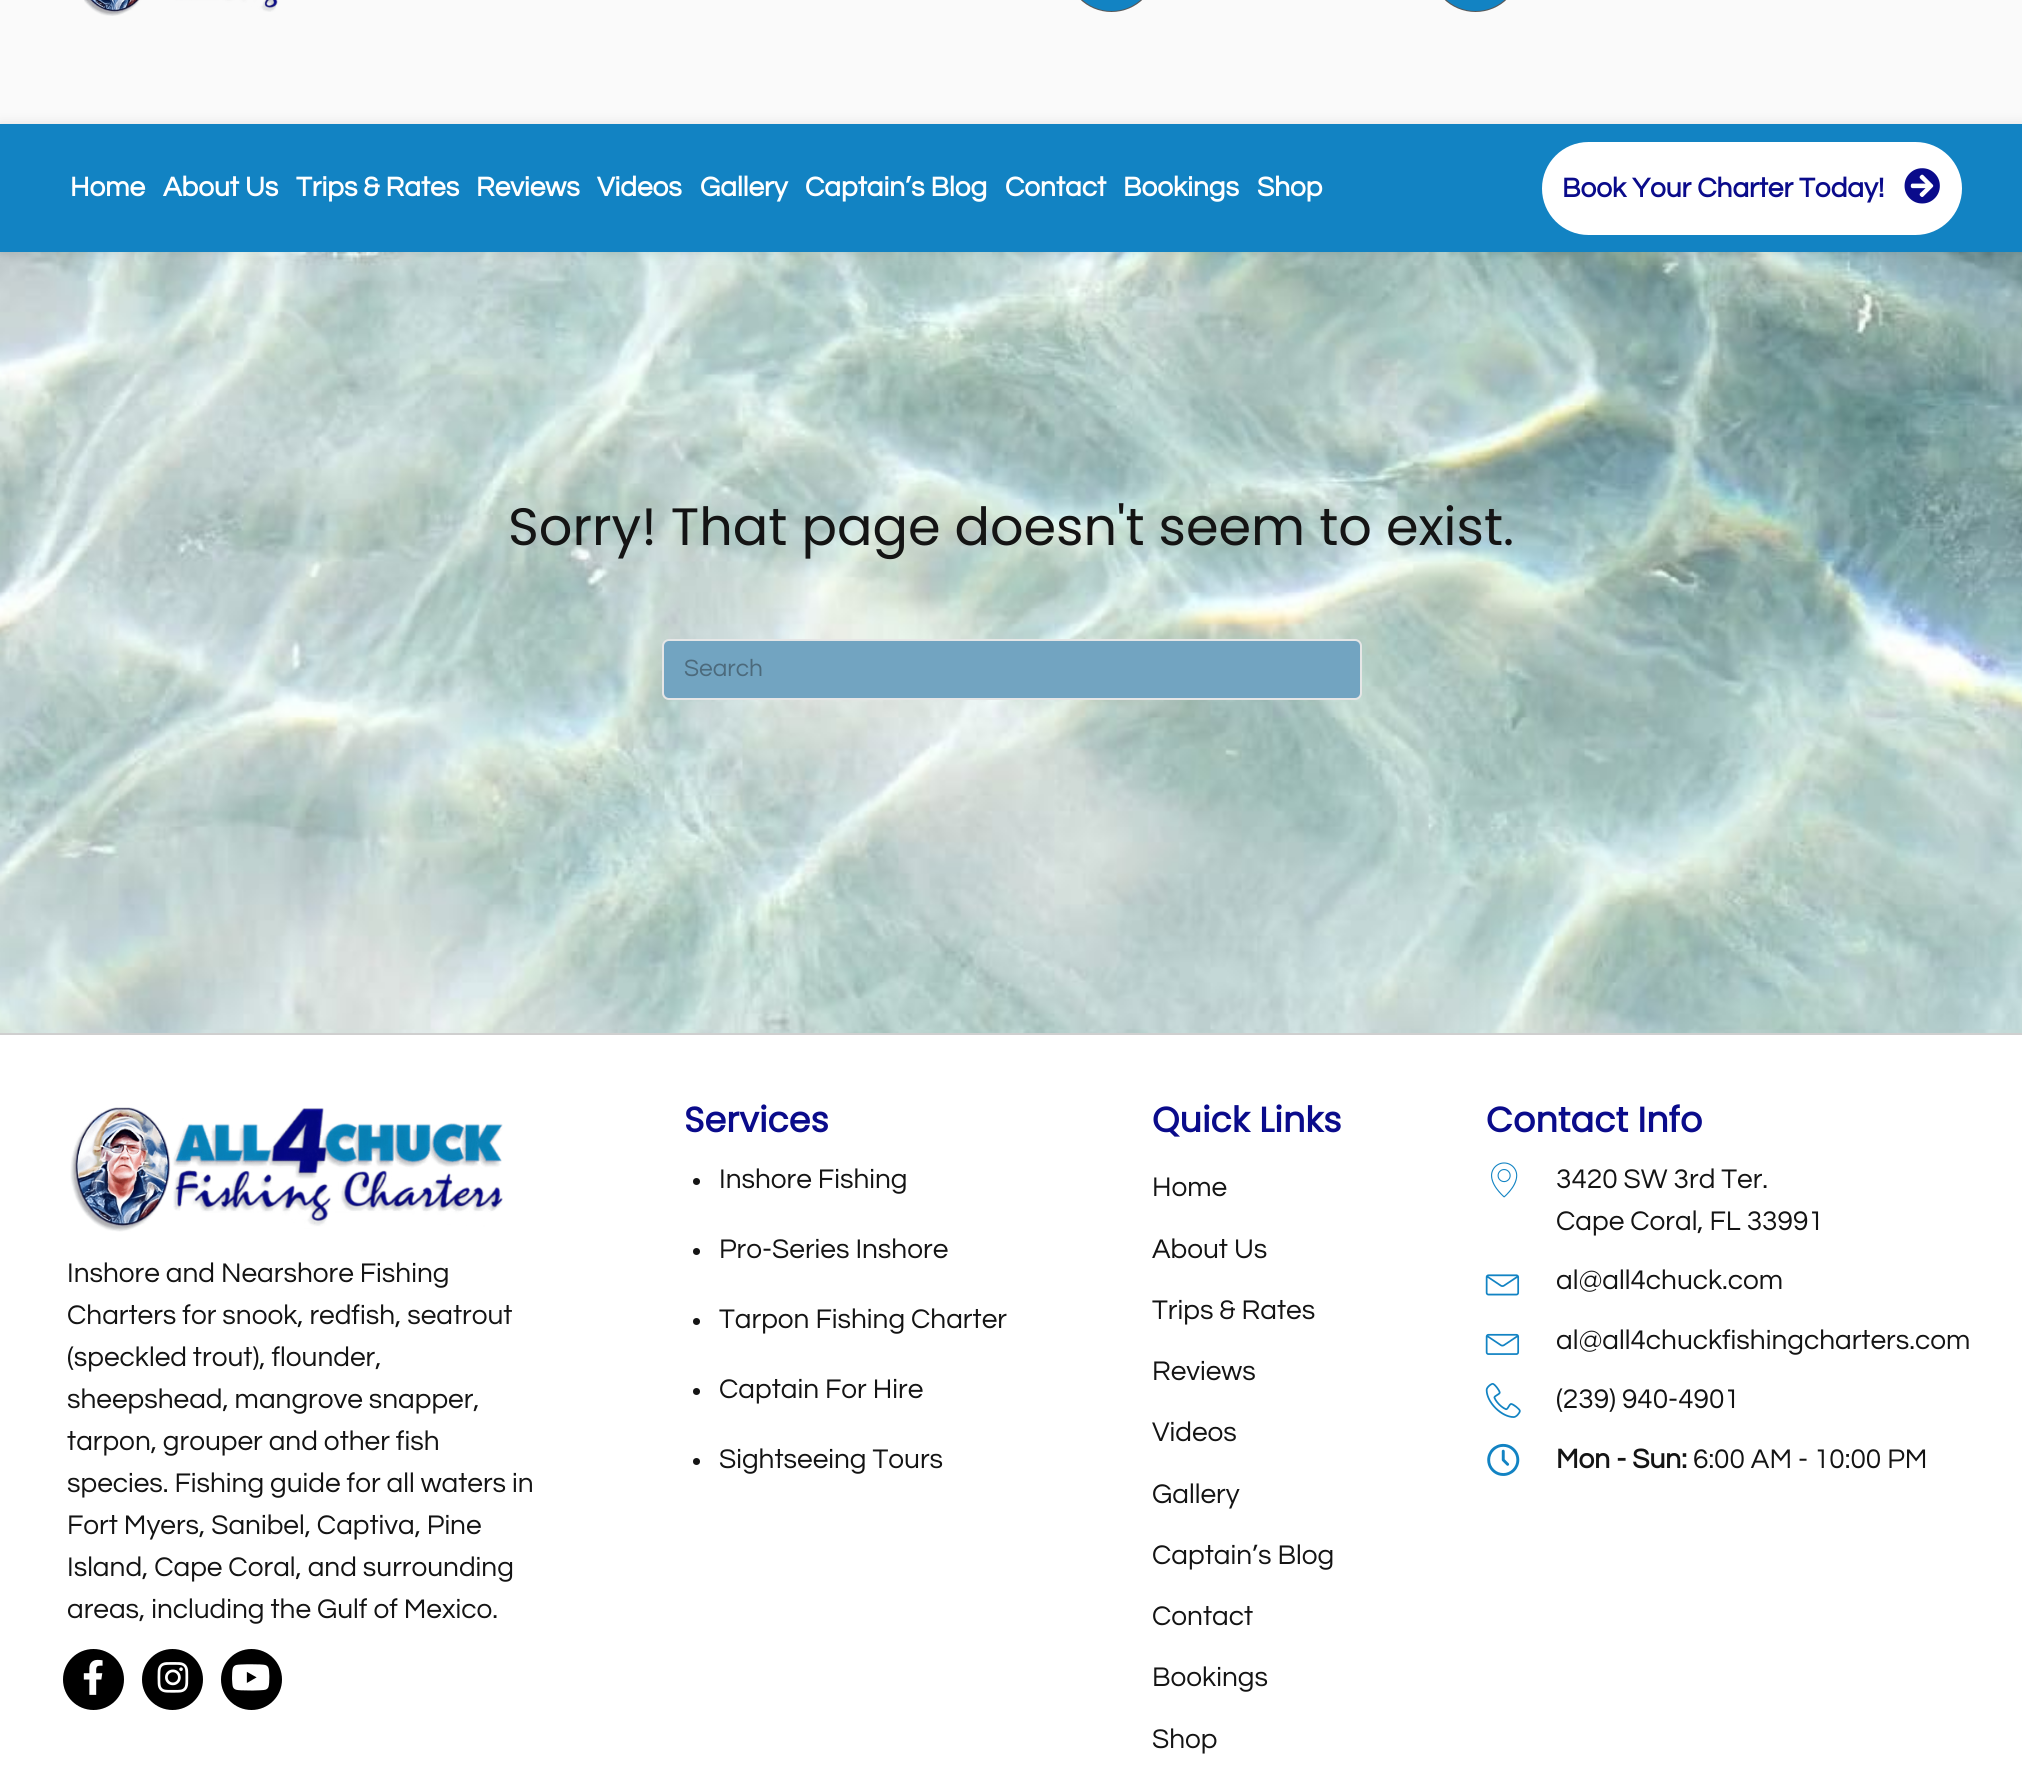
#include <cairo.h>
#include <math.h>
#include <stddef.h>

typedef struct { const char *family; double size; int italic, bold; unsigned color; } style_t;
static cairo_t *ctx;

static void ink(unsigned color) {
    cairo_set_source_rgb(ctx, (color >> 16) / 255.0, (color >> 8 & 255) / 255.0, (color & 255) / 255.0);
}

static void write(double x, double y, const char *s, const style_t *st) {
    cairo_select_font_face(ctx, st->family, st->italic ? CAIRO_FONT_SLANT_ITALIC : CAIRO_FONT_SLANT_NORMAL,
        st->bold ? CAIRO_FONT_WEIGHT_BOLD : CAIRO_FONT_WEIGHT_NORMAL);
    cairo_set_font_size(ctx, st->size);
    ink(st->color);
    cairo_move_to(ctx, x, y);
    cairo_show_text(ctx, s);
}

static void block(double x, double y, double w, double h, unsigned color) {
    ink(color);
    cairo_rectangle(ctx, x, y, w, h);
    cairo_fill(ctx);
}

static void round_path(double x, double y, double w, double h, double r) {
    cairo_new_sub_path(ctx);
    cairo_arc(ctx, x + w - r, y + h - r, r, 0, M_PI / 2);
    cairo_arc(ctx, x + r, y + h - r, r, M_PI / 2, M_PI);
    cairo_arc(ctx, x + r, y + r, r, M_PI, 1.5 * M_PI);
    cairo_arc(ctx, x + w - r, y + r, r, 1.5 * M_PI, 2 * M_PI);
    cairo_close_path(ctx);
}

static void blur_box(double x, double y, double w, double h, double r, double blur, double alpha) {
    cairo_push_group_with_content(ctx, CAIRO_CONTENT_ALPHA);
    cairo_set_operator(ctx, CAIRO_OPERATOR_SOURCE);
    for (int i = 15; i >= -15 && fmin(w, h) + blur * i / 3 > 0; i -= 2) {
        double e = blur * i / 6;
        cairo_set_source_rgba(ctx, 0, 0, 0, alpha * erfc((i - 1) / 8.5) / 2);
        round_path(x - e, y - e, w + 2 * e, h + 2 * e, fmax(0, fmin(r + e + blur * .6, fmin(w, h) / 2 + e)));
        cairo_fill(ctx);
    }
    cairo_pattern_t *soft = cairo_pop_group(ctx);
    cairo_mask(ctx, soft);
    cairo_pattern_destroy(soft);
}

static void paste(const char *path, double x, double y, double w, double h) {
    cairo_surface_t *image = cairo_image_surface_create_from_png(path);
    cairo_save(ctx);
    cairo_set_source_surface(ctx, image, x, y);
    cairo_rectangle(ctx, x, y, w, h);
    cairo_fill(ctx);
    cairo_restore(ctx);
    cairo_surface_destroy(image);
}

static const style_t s1 = {"Questrial", 28, 0, 1, 0xffffff};
static const style_t s2 = {"Questrial", 28, 0, 1, 0x0a0b8b};
static const style_t s3 = {"Poppins", 52.5, 0, 0, 0x141414};
static const style_t s4 = {"Questrial", 24.5, 0, 0, 0x4c6a7c};
static const style_t s5 = {"Questrial", 28, 0, 0, 0x141414};
static const style_t s6 = {"Poppins", 35, 0, 1, 0x0a0b8b};
static const style_t s7 = {"Questrial", 28, 0, 1, 0x141414};

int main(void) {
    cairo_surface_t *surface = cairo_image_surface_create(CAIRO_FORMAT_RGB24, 2022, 1779);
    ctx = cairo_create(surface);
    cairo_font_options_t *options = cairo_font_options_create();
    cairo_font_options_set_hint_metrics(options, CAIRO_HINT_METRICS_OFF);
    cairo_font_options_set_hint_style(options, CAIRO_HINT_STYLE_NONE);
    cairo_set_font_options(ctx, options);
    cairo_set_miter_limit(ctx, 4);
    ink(0xffffff);
    cairo_paint(ctx);
    block(0, 0, 2022, 124, 0xfafafa);
    paste("pic1.png", 84, 0, 194, 16);
    round_path(1067, -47, 89, 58, 44.5);
    ink(0x585858);
    cairo_stroke(ctx);
    ink(0x1283c3);
    round_path(1068, -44, 87, 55, 43.5);
    cairo_fill(ctx);
    round_path(1431, -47, 89, 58, 44.5);
    ink(0x585858);
    cairo_stroke(ctx);
    ink(0x1283c3);
    round_path(1432, -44, 87, 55, 43.5);
    cairo_fill(ctx);
    paste("pic3.png", 0, 252, 2022, 781);
    ink(0x000000);
    blur_box(0, 124, 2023, 128, 0, 6, 0.1);
    block(0, 124, 2022, 128, 0x1283c3);
    write(70, 196, "Home", &s1);
    write(163, 196, "About Us", &s1);
    write(296, 196, "Trips & Rates", &s1);
    write(476, 196, "Reviews", &s1);
    write(597, 196, "Videos", &s1);
    write(700, 196, "Gallery", &s1);
    write(805, 196, "Captain’s Blog", &s1);
    write(1005, 196, "Contact", &s1);
    write(1123, 196, "Bookings", &s1);
    write(1257, 196, "Shop", &s1);
    round_path(1544, 144, 416, 89, 44.5);
    cairo_fill_preserve(ctx);
    cairo_set_line_width(ctx, 4);
    cairo_stroke(ctx);
    write(1562, 197, "Book Your Charter Today!", &s2);
    paste("pic2.png", 1904, 168, 36, 36);
    write(508, 545, "Sorry! That page doesn't seem to exist.", &s3);
    ink(0x72a4c1);
    round_path(663, 640, 698, 59, 6);
    cairo_fill_preserve(ctx);
    ink(0xe6e6e6);
    cairo_set_line_width(ctx, 2);
    cairo_stroke(ctx);
    write(684, 676, "Search", &s4);
    block(0, 1033, 2022, 2, 0xcfcfcf);
    paste("pic4.png", 70, 1107, 433, 125);
    write(67, 1282, "Inshore and Nearshore Fishing", &s5);
    write(67, 1324, "Charters for snook, redfish, seatrout", &s5);
    write(67, 1366, "(speckled trout), flounder,", &s5);
    write(67, 1408, "sheepshead, mangrove snapper,", &s5);
    write(67, 1450, "tarpon, grouper and other fish", &s5);
    write(67, 1492, "species. Fishing guide for all waters in", &s5);
    write(67, 1534, "Fort Myers, Sanibel, Captiva, Pine", &s5);
    write(67, 1576, "Island, Cape Coral, and surrounding", &s5);
    write(67, 1618, "areas, including the Gulf of Mexico.", &s5);
    ink(0x000000);
    cairo_new_path(ctx);
    cairo_arc(ctx, 93.5, 1679.5, 30.5, 0, 2 * M_PI);
    cairo_fill(ctx);
    paste("pic5.png", 83, 1659, 20, 36);
    cairo_arc(ctx, 172.5, 1679.5, 30.5, 0, 2 * M_PI);
    cairo_fill(ctx);
    paste("pic6.png", 157, 1662, 32, 31);
    cairo_arc(ctx, 251.5, 1679.5, 30.5, 0, 2 * M_PI);
    cairo_fill(ctx);
    paste("pic7.png", 232, 1664, 38, 27);
    write(684, 1132, "Services", &s6);
    ink(0x141414);
    cairo_new_path(ctx);
    cairo_arc(ctx, 696.5, 1181.5, 3.5, 0, 2 * M_PI);
    cairo_fill(ctx);
    write(719, 1188, "Inshore Fishing", &s5);
    cairo_new_path(ctx);
    cairo_arc(ctx, 696.5, 1251.5, 3.5, 0, 2 * M_PI);
    cairo_fill(ctx);
    write(719, 1258, "Pro-Series Inshore", &s5);
    cairo_new_path(ctx);
    cairo_arc(ctx, 696.5, 1321.5, 3.5, 0, 2 * M_PI);
    cairo_fill(ctx);
    write(719, 1328, "Tarpon Fishing Charter", &s5);
    cairo_new_path(ctx);
    cairo_arc(ctx, 696.5, 1391.5, 3.5, 0, 2 * M_PI);
    cairo_fill(ctx);
    write(719, 1398, "Captain For Hire", &s5);
    cairo_new_path(ctx);
    cairo_arc(ctx, 696.5, 1461.5, 3.5, 0, 2 * M_PI);
    cairo_fill(ctx);
    write(719, 1468, "Sightseeing Tours", &s5);
    write(1152, 1132, "Quick Links", &s6);
    write(1152, 1196, "Home", &s5);
    write(1152, 1258, "About Us", &s5);
    write(1152, 1319, "Trips & Rates", &s5);
    write(1152, 1380, "Reviews", &s5);
    write(1152, 1441, "Videos", &s5);
    write(1152, 1503, "Gallery", &s5);
    write(1152, 1564, "Captain’s Blog", &s5);
    write(1152, 1625, "Contact", &s5);
    write(1152, 1686, "Bookings", &s5);
    write(1152, 1748, "Shop", &s5);
    write(1486, 1132, "Contact Info", &s6);
    paste("pic8.png", 1491, 1162, 27, 36);
    write(1556, 1188, "3420 SW 3rd Ter.", &s5);
    write(1556, 1230, "Cape Coral, FL 33991", &s5);
    paste("pic9.png", 1485, 1274, 35, 22);
    write(1556, 1289, "al@all4chuck.com", &s5);
    paste("pic10.png", 1485, 1333, 35, 22);
    write(1556, 1349, "al@all4chuckfishingcharters.com", &s5);
    paste("pic11.png", 1485, 1383, 36, 35);
    write(1556, 1408, "(239) 940-4901", &s5);
    paste("pic12.png", 1487, 1443, 33, 33);
    write(1556, 1468, "Mon - Sun:", &s7);
    write(1693, 1468, "6:00 AM - 10:00 PM", &s5);
    cairo_surface_write_to_png(surface, "screenshot.png");
    cairo_font_options_destroy(options);
    cairo_destroy(ctx);
    cairo_surface_destroy(surface);
    return 0;
}
